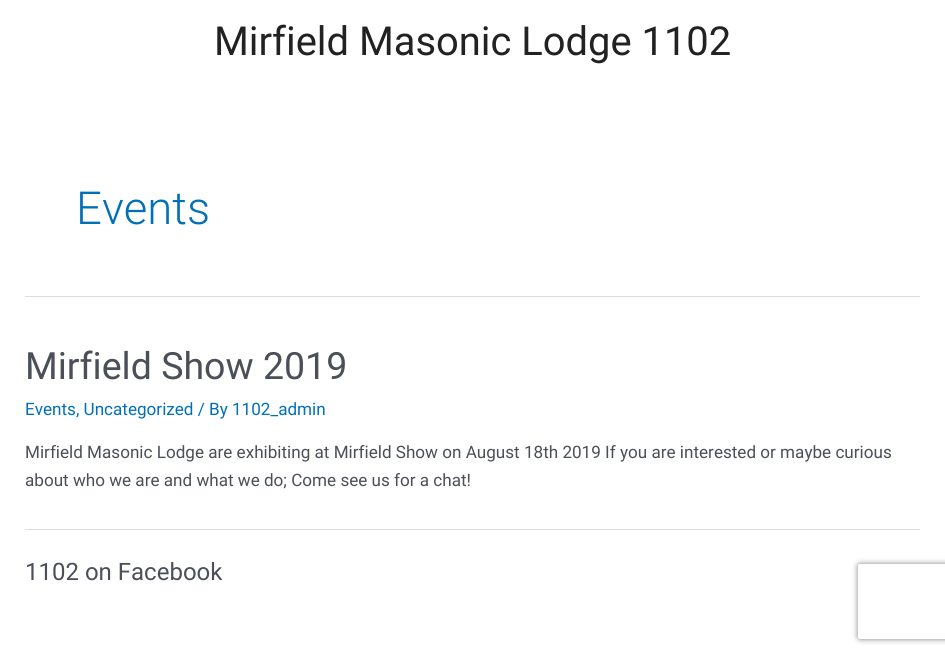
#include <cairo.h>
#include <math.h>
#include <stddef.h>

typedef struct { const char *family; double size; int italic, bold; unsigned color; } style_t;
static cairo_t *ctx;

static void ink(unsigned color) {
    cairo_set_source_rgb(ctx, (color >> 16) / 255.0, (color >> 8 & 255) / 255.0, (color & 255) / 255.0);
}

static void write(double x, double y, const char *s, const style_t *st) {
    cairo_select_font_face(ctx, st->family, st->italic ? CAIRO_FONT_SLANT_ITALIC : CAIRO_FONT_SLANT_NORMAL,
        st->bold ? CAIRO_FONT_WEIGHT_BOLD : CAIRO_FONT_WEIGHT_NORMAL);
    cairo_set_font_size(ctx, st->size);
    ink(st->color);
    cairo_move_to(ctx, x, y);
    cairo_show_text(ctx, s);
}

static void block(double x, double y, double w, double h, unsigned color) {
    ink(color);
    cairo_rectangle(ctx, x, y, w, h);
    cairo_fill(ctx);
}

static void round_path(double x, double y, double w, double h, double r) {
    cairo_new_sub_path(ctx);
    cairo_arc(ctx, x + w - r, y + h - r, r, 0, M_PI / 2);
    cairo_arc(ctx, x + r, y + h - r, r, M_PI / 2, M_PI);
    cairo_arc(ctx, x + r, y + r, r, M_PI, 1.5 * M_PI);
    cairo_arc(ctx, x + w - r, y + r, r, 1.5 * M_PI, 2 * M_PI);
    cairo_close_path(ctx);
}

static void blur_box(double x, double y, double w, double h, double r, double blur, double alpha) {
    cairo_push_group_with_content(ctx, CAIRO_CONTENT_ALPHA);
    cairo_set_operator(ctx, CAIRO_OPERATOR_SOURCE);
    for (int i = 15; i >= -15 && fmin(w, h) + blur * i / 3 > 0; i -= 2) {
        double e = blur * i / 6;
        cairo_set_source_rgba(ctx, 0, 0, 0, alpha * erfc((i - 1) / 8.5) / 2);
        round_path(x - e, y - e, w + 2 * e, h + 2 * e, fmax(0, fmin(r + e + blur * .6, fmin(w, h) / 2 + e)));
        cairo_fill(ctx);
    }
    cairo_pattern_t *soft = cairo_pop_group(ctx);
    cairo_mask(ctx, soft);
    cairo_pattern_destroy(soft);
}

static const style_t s1 = {"Roboto", 39.9, 0, 0, 0x222222};
static const style_t s2 = {"Roboto Light", 45.5, 0, 0, 0x0170b9};
static const style_t s3 = {"Roboto", 37.5, 0, 0, 0x4b4f58};
static const style_t s4 = {"Roboto", 17.1, 0, 0, 0x0170b9};
static const style_t s5 = {"Roboto", 17.1, 0, 0, 0x4b4f58};
static const style_t s6 = {"Roboto", 24, 0, 0, 0x4b4f58};

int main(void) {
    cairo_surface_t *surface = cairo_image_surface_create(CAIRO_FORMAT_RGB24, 945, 656);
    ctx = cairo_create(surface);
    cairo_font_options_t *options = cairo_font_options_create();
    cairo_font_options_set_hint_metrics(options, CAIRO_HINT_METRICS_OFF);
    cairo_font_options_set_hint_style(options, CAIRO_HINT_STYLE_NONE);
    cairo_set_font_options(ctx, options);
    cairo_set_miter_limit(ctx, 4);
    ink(0xffffff);
    cairo_paint(ctx);
    write(214, 55, "Mirfield Masonic Lodge 1102", &s1);
    block(25, 296, 895, 1, 0xdddddd);
    write(76, 224, "Events", &s2);
    block(25, 529, 895, 1, 0xdddddd);
    write(25, 379, "Mirfield Show 2019", &s3);
    write(25, 415, "Events, Uncategorized / By 1102_admin", &s4);
    write(25, 458, "Mirfield Masonic Lodge are exhibiting at Mirfield Show on August 18th 2019 If you are interested or maybe curious", &s5);
    write(25, 486, "about who we are and what we do; Come see us for a chat!", &s5);
    write(25, 580, "1102 on Facebook", &s6);
    cairo_save(ctx);
    cairo_set_fill_rule(ctx, CAIRO_FILL_RULE_EVEN_ODD);
    cairo_new_path(ctx);
    cairo_move_to(ctx, 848, 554);
    cairo_line_to(ctx, 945, 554);
    cairo_line_to(ctx, 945, 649);
    cairo_line_to(ctx, 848, 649);
    cairo_close_path(ctx);
    cairo_move_to(ctx, 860.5, 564);
    cairo_line_to(ctx, 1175.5, 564);
    cairo_curve_to(ctx, 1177, 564, 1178, 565, 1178, 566.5);
    cairo_line_to(ctx, 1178, 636.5);
    cairo_curve_to(ctx, 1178, 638, 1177, 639, 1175.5, 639);
    cairo_line_to(ctx, 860.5, 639);
    cairo_curve_to(ctx, 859, 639, 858, 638, 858, 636.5);
    cairo_line_to(ctx, 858, 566.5);
    cairo_curve_to(ctx, 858, 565, 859, 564, 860.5, 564);
    cairo_close_path(ctx);
    cairo_clip(ctx);
    ink(0x808080);
    blur_box(858, 564, 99, 75, 2.5, 3, 1);
    cairo_restore(ctx);
    cairo_surface_write_to_png(surface, "screenshot.png");
    cairo_font_options_destroy(options);
    cairo_destroy(ctx);
    cairo_surface_destroy(surface);
    return 0;
}
